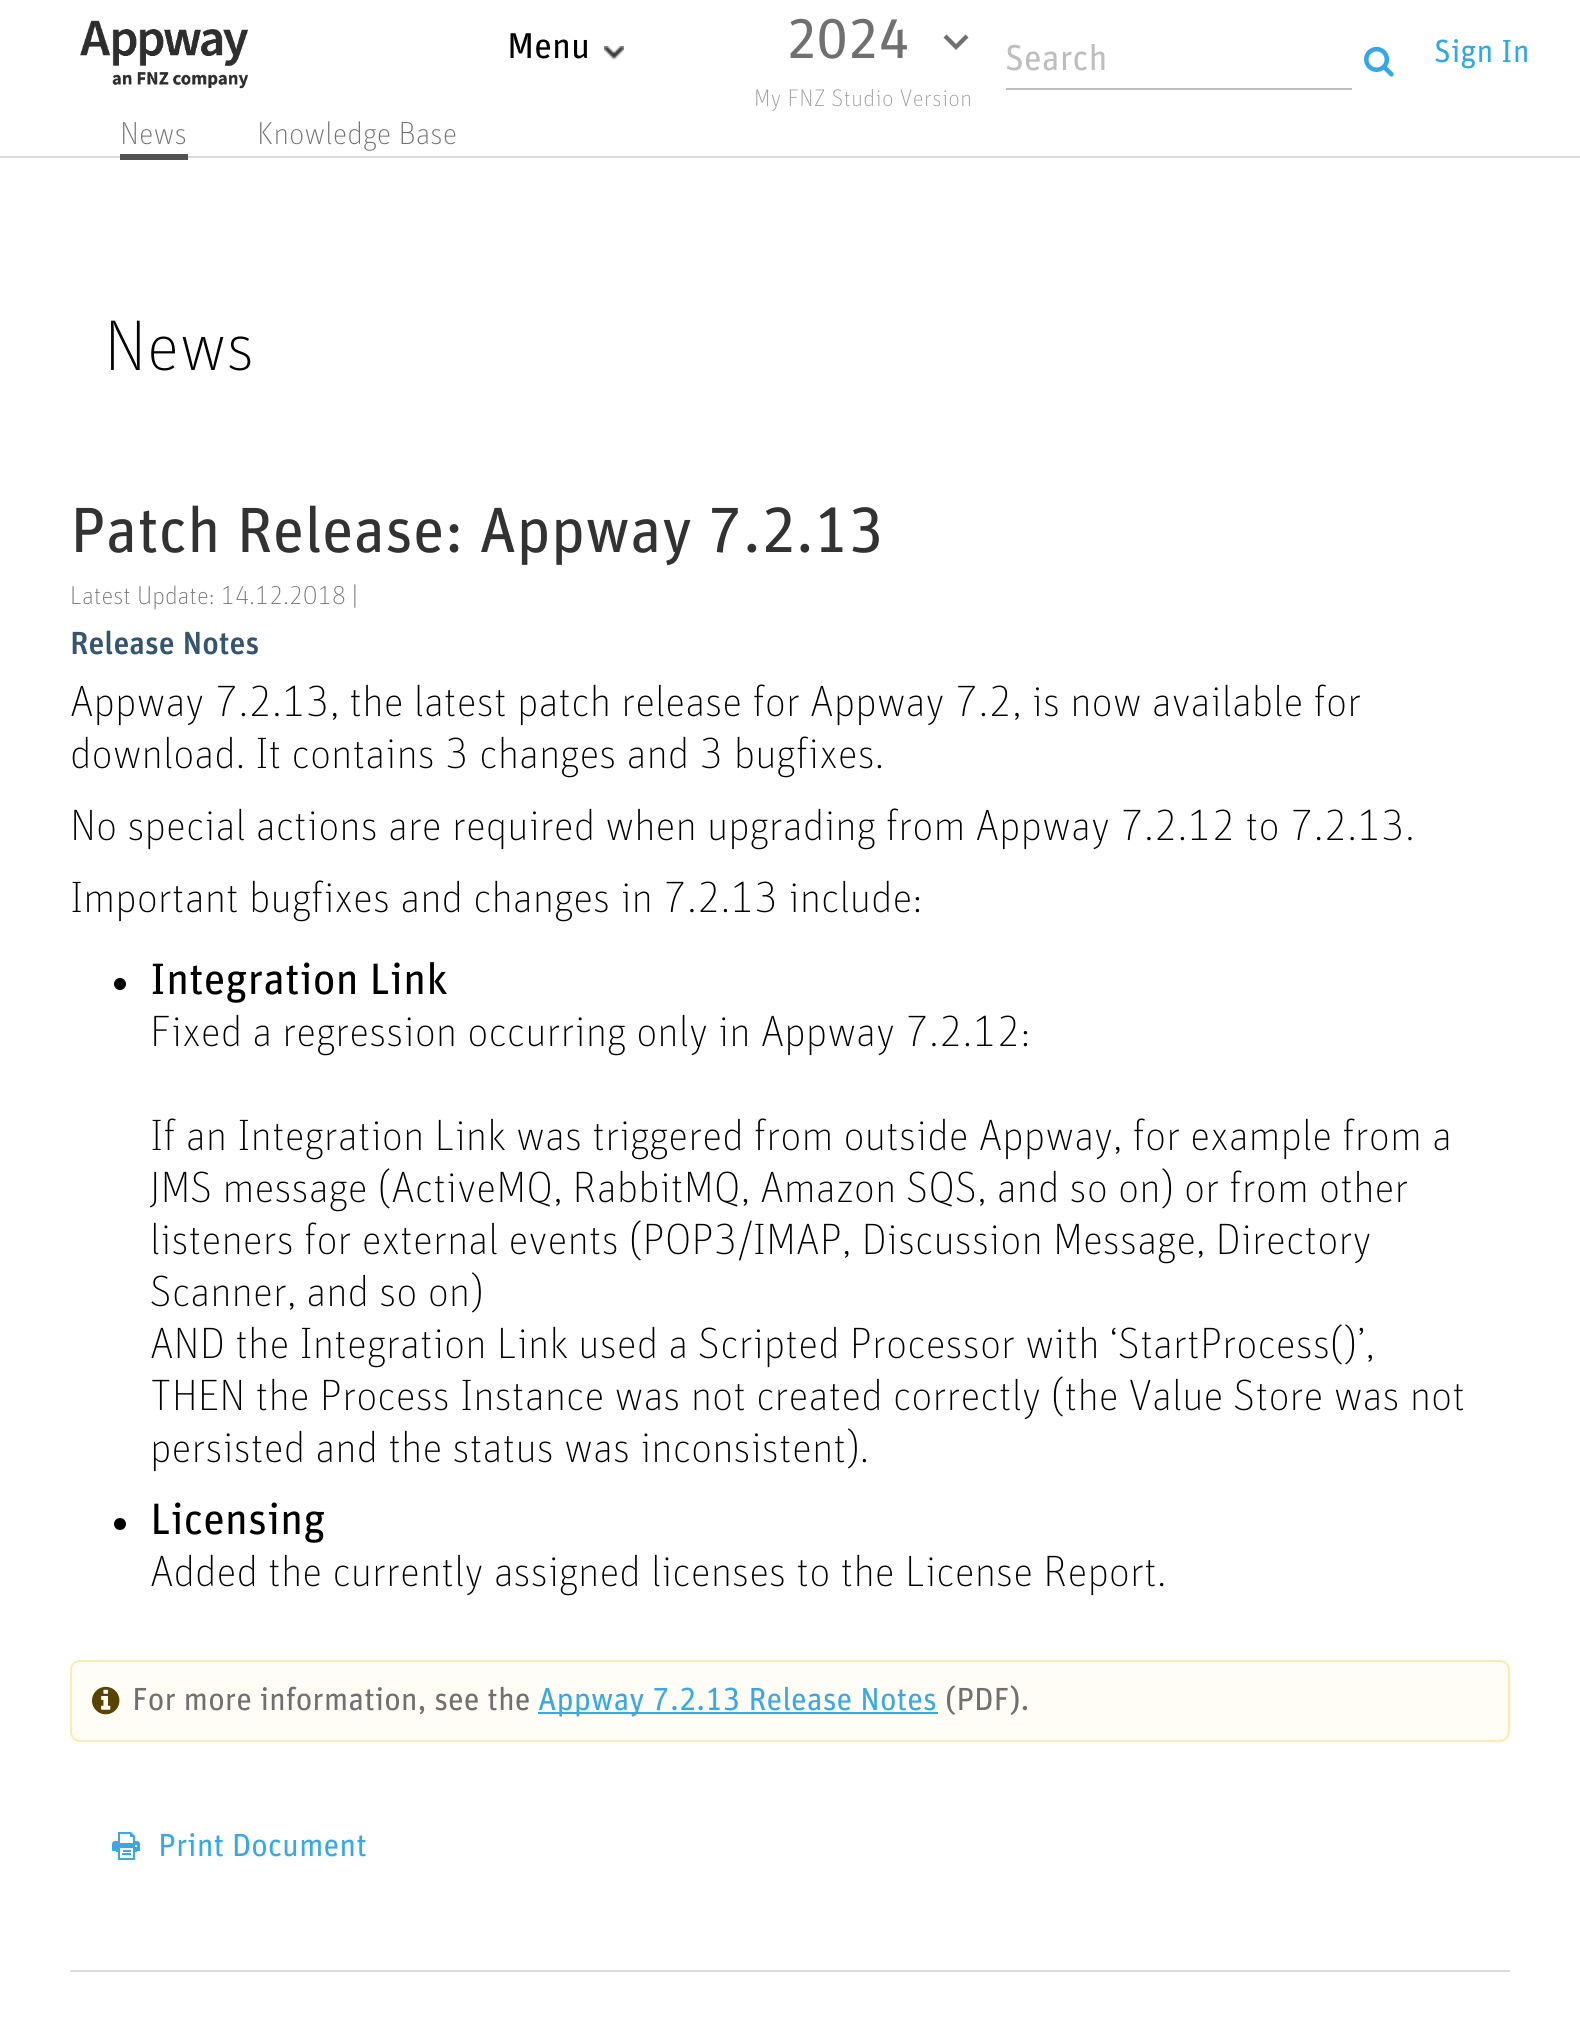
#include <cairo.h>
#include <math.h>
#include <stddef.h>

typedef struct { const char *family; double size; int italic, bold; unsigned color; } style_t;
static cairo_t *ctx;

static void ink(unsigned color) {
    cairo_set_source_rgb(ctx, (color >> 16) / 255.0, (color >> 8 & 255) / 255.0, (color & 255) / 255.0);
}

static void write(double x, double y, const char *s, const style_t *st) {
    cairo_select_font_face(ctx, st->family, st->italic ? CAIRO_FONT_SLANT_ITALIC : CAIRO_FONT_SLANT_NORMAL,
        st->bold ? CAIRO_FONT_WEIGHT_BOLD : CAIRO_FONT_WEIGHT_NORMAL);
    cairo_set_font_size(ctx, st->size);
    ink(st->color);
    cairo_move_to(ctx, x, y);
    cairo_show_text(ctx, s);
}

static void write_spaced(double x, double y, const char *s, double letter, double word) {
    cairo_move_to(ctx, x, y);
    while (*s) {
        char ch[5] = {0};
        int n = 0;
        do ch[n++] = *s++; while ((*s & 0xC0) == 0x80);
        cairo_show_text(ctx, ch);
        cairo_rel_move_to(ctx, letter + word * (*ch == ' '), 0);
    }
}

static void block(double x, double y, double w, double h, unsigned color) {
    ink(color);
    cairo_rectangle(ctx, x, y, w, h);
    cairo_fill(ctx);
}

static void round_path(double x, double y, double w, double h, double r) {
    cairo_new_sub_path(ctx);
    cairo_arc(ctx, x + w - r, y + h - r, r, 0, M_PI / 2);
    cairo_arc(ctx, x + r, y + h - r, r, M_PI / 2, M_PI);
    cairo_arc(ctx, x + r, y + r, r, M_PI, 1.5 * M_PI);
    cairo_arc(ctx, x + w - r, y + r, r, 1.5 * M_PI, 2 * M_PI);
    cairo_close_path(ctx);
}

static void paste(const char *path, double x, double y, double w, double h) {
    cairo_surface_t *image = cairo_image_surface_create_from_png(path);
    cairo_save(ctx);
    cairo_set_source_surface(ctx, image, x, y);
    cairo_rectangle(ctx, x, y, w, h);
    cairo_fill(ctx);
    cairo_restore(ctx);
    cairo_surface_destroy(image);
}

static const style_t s1 = {"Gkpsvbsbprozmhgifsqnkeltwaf", 36, 0, 0, 0x000000};
static const style_t s2 = {"Gkpsvbsbprozmhgifsqnkeltwaf", 56, 0, 0, 0x707070};
static const style_t s3 = {"Gkpsvbsbprozmhgifsqnkeltwaf", 36, 0, 0, 0xbebebe};
static const style_t s4 = {"Gkpsvbsbprozmhgifsqnkeltwaf", 32, 0, 0, 0x35a7e5};
static const style_t s5 = {"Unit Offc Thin", 32, 0, 0, 0x707070};
static const style_t s6 = {"Unit Offc Thin", 72, 0, 0, 0x000000};
static const style_t s7 = {"Gkpsvbsbprozmhgifsqnkeltwaf", 64, 0, 0, 0x323232};
static const style_t s8 = {"Unit Offc Thin", 26, 0, 0, 0x707070};
static const style_t s9 = {"Unit Offc Medium", 32, 0, 0, 0x35556f};
static const style_t s10 = {"Unit Offc Thin", 44, 0, 0, 0x000000};
static const style_t s11 = {"Gkpsvbsbprozmhgifsqnkeltwaf", 44, 0, 0, 0x000000};
static const style_t s12 = {"Gkpsvbsbprozmhgifsqnkeltwaf", 32, 0, 0, 0x707070};
static const style_t s13 = {"Gkpsvbsbprozmhgifsqnkeltwaf", 32, 0, 0, 0x3ca8e2};

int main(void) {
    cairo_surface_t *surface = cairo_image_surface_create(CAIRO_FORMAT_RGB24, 1580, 2021);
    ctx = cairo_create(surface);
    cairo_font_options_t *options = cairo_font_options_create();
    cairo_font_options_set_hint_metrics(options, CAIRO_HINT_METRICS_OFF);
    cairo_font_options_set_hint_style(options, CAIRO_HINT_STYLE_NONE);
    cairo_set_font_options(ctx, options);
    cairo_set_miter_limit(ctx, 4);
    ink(0xffffff);
    cairo_paint(ctx);
    block(0, 156, 1580, 2, 0xdbdbdb);
    paste("pic1.png", 80, 20, 168, 69);
    write(507, 58, "Menu", &s1);
    paste("pic2.png", 604, 46, 20, 14);
    write(786, 58, "2024", &s2);
    cairo_new_path(ctx);
    cairo_move_to(ctx, 946.5, 34.5);
    cairo_line_to(ctx, 956, 44);
    cairo_line_to(ctx, 965.5, 34.5);
    cairo_line_to(ctx, 968.5, 37.5);
    cairo_line_to(ctx, 956, 50);
    cairo_line_to(ctx, 943.5, 37.5);
    cairo_close_path(ctx);
    cairo_fill(ctx);
    cairo_select_font_face(ctx, "Unit Offc Thin", CAIRO_FONT_SLANT_NORMAL, CAIRO_FONT_WEIGHT_NORMAL);
    cairo_set_font_size(ctx, 24);
    ink(0x969696);
    write_spaced(754, 106, "My FNZ Studio Version", 0.4, 0);
    block(1006, 88, 346, 2, 0xbebebe);
    write(1005, 70, "Search", &s3);
    paste("pic3.png", 1364, 46, 30, 31);
    write(1434, 62, "Sign In", &s4);
    block(120, 154, 68, 6, 0x525252);
    write(120, 144, "News", &s5);
    write(257, 144, "Knowledge Base", &s5);
    write(104, 370, "News", &s6);
    write(70, 552, "Patch Release: Appway 7.2.13", &s7);
    write(70, 604, "Latest Update: 14.12.2018 |", &s8);
    write(70, 654, "Release Notes", &s9);
    write(70, 716, "Appway 7.2.13, the latest patch release for Appway 7.2, is now available for", &s10);
    write(70, 768, "download. It contains 3 changes and 3 bugfixes.", &s10);
    write(70, 840, "No special actions are required when upgrading from Appway 7.2.12 to 7.2.13.", &s10);
    write(70, 912, "Important bugfixes and changes in 7.2.13 include:", &s10);
    cairo_new_path(ctx);
    cairo_arc(ctx, 120, 984, 6, 0, 2 * M_PI);
    cairo_fill(ctx);
    write(150, 994, "Integration Link", &s11);
    write(150, 1046, "Fixed a regression occurring only in Appway 7.2.12:", &s10);
    write(150, 1150, "If an Integration Link was triggered from outside Appway, for example from a", &s10);
    write(150, 1202, "JMS message (ActiveMQ, RabbitMQ, Amazon SQS, and so on) or from other", &s10);
    write(150, 1254, "listeners for external events (POP3/IMAP, Discussion Message, Directory", &s10);
    write(150, 1306, "Scanner, and so on)", &s10);
    write(150, 1358, "AND the Integration Link used a Scripted Processor with ‘StartProcess()’,", &s10);
    write(150, 1410, "THEN the Process Instance was not created correctly (the Value Store was not", &s10);
    write(150, 1462, "persisted and the status was inconsistent).", &s10);
    cairo_new_path(ctx);
    cairo_arc(ctx, 120, 1524, 6, 0, 2 * M_PI);
    cairo_fill(ctx);
    write(150, 1534, "Licensing", &s11);
    write(150, 1586, "Added the currently assigned licenses to the License Report.", &s10);
    ink(0xfffdf6);
    round_path(71, 1661, 1438, 80, 9);
    cairo_fill_preserve(ctx);
    ink(0xffeaae);
    cairo_stroke(ctx);
    paste("pic4.png", 92, 1686, 28, 29);
    write(132, 1710, "For more information, see the", &s12);
    block(538, 1712, 400, 2, 0x3ca8e2);
    write(538, 1710, "Appway 7.2.13 Release Notes", &s13);
    write(945, 1710, "(PDF).", &s12);
    paste("pic5.png", 112, 1832, 28, 28);
    write(158, 1856, "Print Document", &s13);
    block(70, 1970, 1440, 2, 0xdbdbdb);
    cairo_surface_write_to_png(surface, "screenshot.png");
    cairo_font_options_destroy(options);
    cairo_destroy(ctx);
    cairo_surface_destroy(surface);
    return 0;
}
